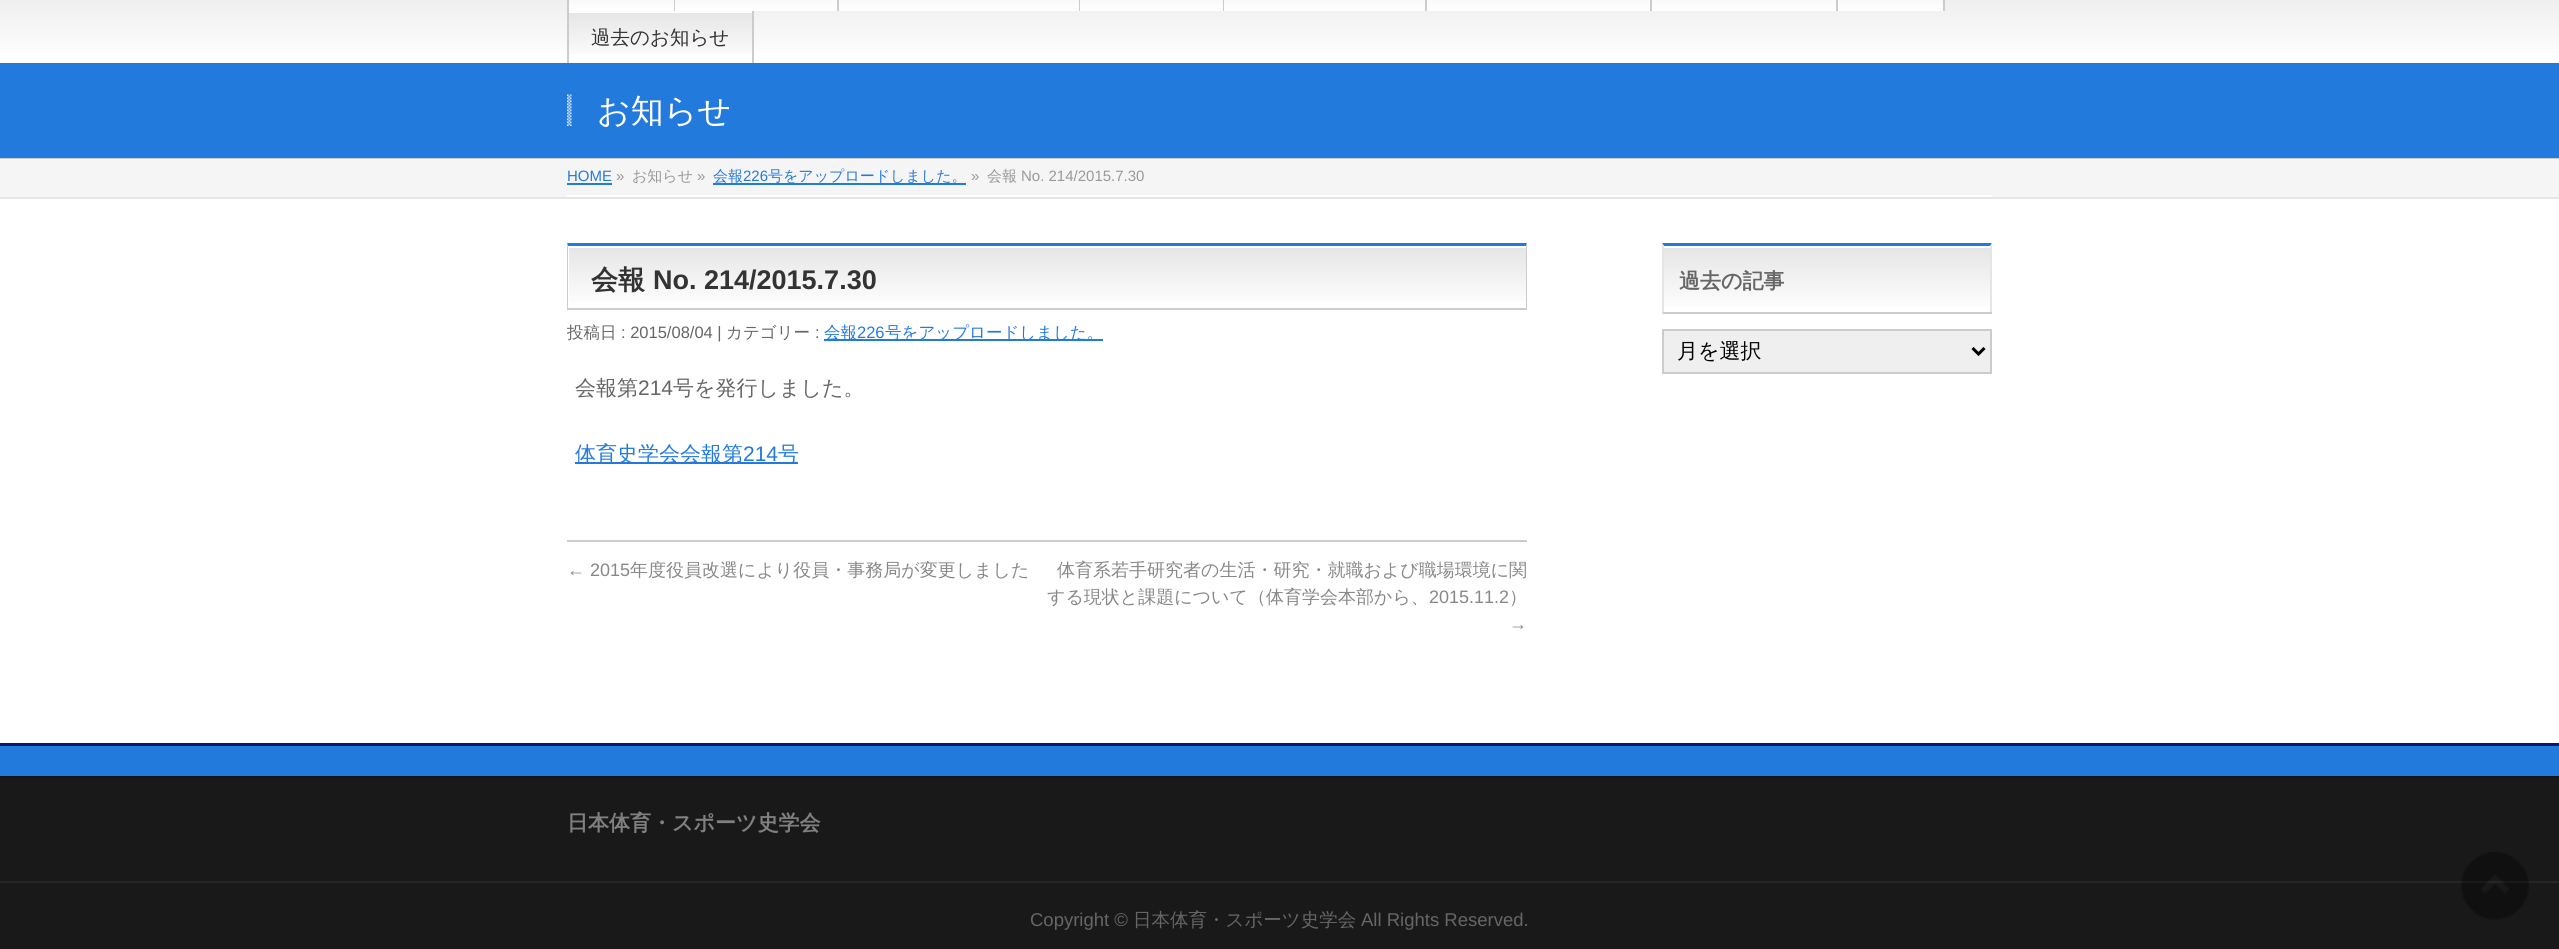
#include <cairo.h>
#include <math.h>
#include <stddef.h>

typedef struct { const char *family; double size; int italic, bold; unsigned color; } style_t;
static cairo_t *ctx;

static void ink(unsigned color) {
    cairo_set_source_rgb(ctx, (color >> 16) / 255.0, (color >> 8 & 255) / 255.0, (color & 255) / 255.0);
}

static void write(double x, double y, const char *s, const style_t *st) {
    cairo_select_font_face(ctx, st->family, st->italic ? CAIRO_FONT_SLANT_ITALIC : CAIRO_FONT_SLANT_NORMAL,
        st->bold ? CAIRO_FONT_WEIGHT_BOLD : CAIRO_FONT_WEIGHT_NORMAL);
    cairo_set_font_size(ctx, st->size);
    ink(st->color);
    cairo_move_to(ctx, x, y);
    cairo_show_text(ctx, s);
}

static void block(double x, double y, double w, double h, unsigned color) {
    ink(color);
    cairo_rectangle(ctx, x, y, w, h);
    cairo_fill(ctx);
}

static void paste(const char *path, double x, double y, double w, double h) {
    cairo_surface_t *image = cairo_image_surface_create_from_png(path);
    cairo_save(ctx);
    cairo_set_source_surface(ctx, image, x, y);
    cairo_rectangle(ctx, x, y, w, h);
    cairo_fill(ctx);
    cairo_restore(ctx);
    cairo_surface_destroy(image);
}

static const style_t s1 = {"WenQuanYi Zen Hei Medium", 19.5, 0, 0, 0x333333};
static const style_t s2 = {"WenQuanYi Zen Hei Medium", 33, 0, 0, 0xffffff};
static const style_t s3 = {"Liberation Sans", 15, 0, 0, 0x237add};
static const style_t s4 = {"Liberation Sans", 15, 0, 0, 0x999999};
static const style_t s5 = {"WenQuanYi Zen Hei Medium", 15, 0, 0, 0x999999};
static const style_t s6 = {"WenQuanYi Zen Hei Medium", 15, 0, 0, 0x237add};
static const style_t s7 = {"WenQuanYi Zen Hei", 27, 0, 1, 0x333333};
static const style_t s8 = {"Liberation Sans", 27, 0, 1, 0x333333};
static const style_t s9 = {"WenQuanYi Zen Hei Medium", 16.5, 0, 0, 0x666666};
static const style_t s10 = {"Liberation Sans", 16.5, 0, 0, 0x666666};
static const style_t s11 = {"WenQuanYi Zen Hei Medium", 16.5, 0, 0, 0x237add};
static const style_t s12 = {"Liberation Sans", 16.5, 0, 0, 0x237add};
static const style_t s13 = {"WenQuanYi Zen Hei Medium", 21, 0, 0, 0x666666};
static const style_t s14 = {"Liberation Sans", 21, 0, 0, 0x666666};
static const style_t s15 = {"WenQuanYi Zen Hei Medium", 21, 0, 0, 0x237add};
static const style_t s16 = {"Liberation Sans", 21, 0, 0, 0x237add};
static const style_t s17 = {"Liberation Sans", 18, 0, 0, 0x888888};
static const style_t s18 = {"WenQuanYi Zen Hei Medium", 18, 0, 0, 0x888888};
static const style_t s19 = {"WenQuanYi Zen Hei", 21, 0, 1, 0x666666};
static const style_t s20 = {"WenQuanYi Zen Hei Medium", 21, 0, 0, 0x000000};
static const style_t s21 = {"WenQuanYi Zen Hei", 21, 0, 1, 0x808080};
static const style_t s22 = {"Liberation Sans", 18.5, 0, 0, 0x666666};
static const style_t s23 = {"WenQuanYi Zen Hei Medium", 18.5, 0, 0, 0x666666};

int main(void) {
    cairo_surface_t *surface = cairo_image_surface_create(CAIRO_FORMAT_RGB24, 2559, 949);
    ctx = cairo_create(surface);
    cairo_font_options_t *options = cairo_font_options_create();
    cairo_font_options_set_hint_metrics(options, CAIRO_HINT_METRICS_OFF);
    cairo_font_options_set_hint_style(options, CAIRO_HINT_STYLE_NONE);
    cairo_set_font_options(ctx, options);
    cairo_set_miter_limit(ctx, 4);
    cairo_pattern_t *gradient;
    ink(0xffffff);
    cairo_paint(ctx);
    gradient = cairo_pattern_create_linear(0, -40, 0, 63);
    cairo_pattern_add_color_stop_rgba(gradient, 0, 0.898, 0.898, 0.898, 1);
    cairo_pattern_add_color_stop_rgba(gradient, 1, 1, 1, 1, 1);
    cairo_set_source(ctx, gradient);
    cairo_pattern_destroy(gradient);
    cairo_rectangle(ctx, 0, 0, 2559, 53);
    cairo_fill(ctx);
    block(567, 0, 2, 63, 0xcccccc);
    gradient = cairo_pattern_create_linear(569, -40, 569, 11);
    cairo_pattern_add_color_stop_rgba(gradient, 0, 0.898, 0.898, 0.898, 1);
    cairo_pattern_add_color_stop_rgba(gradient, 1, 1, 1, 1, 1);
    cairo_set_source(ctx, gradient);
    cairo_pattern_destroy(gradient);
    cairo_rectangle(ctx, 569, 0, 105, 11);
    cairo_fill(ctx);
    block(674, 0, 1, 11, 0xcccccc);
    gradient = cairo_pattern_create_linear(675, -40, 675, 11);
    cairo_pattern_add_color_stop_rgba(gradient, 0, 0.898, 0.898, 0.898, 1);
    cairo_pattern_add_color_stop_rgba(gradient, 1, 1, 1, 1, 1);
    cairo_set_source(ctx, gradient);
    cairo_pattern_destroy(gradient);
    cairo_rectangle(ctx, 675, 0, 162, 11);
    cairo_fill(ctx);
    block(837, 0, 2, 11, 0xcccccc);
    gradient = cairo_pattern_create_linear(839, -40, 839, 11);
    cairo_pattern_add_color_stop_rgba(gradient, 0, 0.898, 0.898, 0.898, 1);
    cairo_pattern_add_color_stop_rgba(gradient, 1, 1, 1, 1, 1);
    cairo_set_source(ctx, gradient);
    cairo_pattern_destroy(gradient);
    cairo_rectangle(ctx, 839, 0, 240, 11);
    cairo_fill(ctx);
    block(1079, 0, 1, 11, 0xcccccc);
    gradient = cairo_pattern_create_linear(1080, -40, 1080, 11);
    cairo_pattern_add_color_stop_rgba(gradient, 0, 0.898, 0.898, 0.898, 1);
    cairo_pattern_add_color_stop_rgba(gradient, 1, 1, 1, 1, 1);
    cairo_set_source(ctx, gradient);
    cairo_pattern_destroy(gradient);
    cairo_rectangle(ctx, 1080, 0, 143, 11);
    cairo_fill(ctx);
    block(1223, 0, 1, 11, 0xcccccc);
    gradient = cairo_pattern_create_linear(1224, -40, 1224, 11);
    cairo_pattern_add_color_stop_rgba(gradient, 0, 0.898, 0.898, 0.898, 1);
    cairo_pattern_add_color_stop_rgba(gradient, 1, 1, 1, 1, 1);
    cairo_set_source(ctx, gradient);
    cairo_pattern_destroy(gradient);
    cairo_rectangle(ctx, 1224, 0, 201, 11);
    cairo_fill(ctx);
    block(1425, 0, 2, 11, 0xcccccc);
    gradient = cairo_pattern_create_linear(1427, -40, 1427, 11);
    cairo_pattern_add_color_stop_rgba(gradient, 0, 0.898, 0.898, 0.898, 1);
    cairo_pattern_add_color_stop_rgba(gradient, 1, 1, 1, 1, 1);
    cairo_set_source(ctx, gradient);
    cairo_pattern_destroy(gradient);
    cairo_rectangle(ctx, 1427, 0, 223, 11);
    cairo_fill(ctx);
    block(1650, 0, 2, 11, 0xcccccc);
    gradient = cairo_pattern_create_linear(1652, -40, 1652, 11);
    cairo_pattern_add_color_stop_rgba(gradient, 0, 0.898, 0.898, 0.898, 1);
    cairo_pattern_add_color_stop_rgba(gradient, 1, 1, 1, 1, 1);
    cairo_set_source(ctx, gradient);
    cairo_pattern_destroy(gradient);
    cairo_rectangle(ctx, 1652, 0, 184, 11);
    cairo_fill(ctx);
    block(1836, 0, 2, 11, 0xcccccc);
    gradient = cairo_pattern_create_linear(1838, -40, 1838, 11);
    cairo_pattern_add_color_stop_rgba(gradient, 0, 0.898, 0.898, 0.898, 1);
    cairo_pattern_add_color_stop_rgba(gradient, 1, 1, 1, 1, 1);
    cairo_set_source(ctx, gradient);
    cairo_pattern_destroy(gradient);
    cairo_rectangle(ctx, 1838, 0, 105, 11);
    cairo_fill(ctx);
    block(1943, 0, 2, 11, 0xcccccc);
    gradient = cairo_pattern_create_linear(569, 11, 569, 63);
    cairo_pattern_add_color_stop_rgba(gradient, 0, 0.898, 0.898, 0.898, 1);
    cairo_pattern_add_color_stop_rgba(gradient, 1, 1, 1, 1, 1);
    cairo_set_source(ctx, gradient);
    cairo_pattern_destroy(gradient);
    cairo_rectangle(ctx, 569, 13, 183, 41);
    cairo_fill(ctx);
    block(569, 11, 183, 2, 0xffffff);
    block(752, 11, 2, 52, 0xcccccc);
    write(591, 44, "過去のお知らせ", &s1);
    block(0, 63, 2559, 95, 0x237add);
    block(0, 158, 2559, 1, 0xcccccc);
    paste("pic1.png", 567, 94, 5, 32);
    write(597, 122, "お知らせ", &s2);
    block(0, 159, 2559, 38, 0xf5f5f5);
    block(0, 197, 2559, 2, 0xe5e5e5);
    block(567, 195, 1425, 2, 0xffffff);
    write(567, 181, "HOME", &s3);
    block(567, 183, 45, 2, 0x237add);
    write(616, 181, "»", &s4);
    write(632, 181, "お知らせ", &s5);
    write(697, 181, "»", &s4);
    block(713, 183, 253, 2, 0x237add);
    write(713, 181, "会報", &s6);
    write(743, 181, "226", &s3);
    write(768, 181, "号をアップロードしました。", &s6);
    write(971, 181, "»", &s4);
    write(987, 181, "会報", &s5);
    write(1021, 181, "No. 214/2015.7.30", &s4);
    gradient = cairo_pattern_create_linear(569, 246, 569, 308);
    cairo_pattern_add_color_stop_rgba(gradient, 0, 0.898, 0.898, 0.898, 1);
    cairo_pattern_add_color_stop_rgba(gradient, 1, 1, 1, 1, 1);
    cairo_set_source(ctx, gradient);
    cairo_pattern_destroy(gradient);
    cairo_rectangle(ctx, 569, 248, 957, 54);
    cairo_fill(ctx);
    ink(0x237add);
    cairo_new_path(ctx);
    cairo_move_to(ctx, 567, 243);
    cairo_line_to(ctx, 1527, 243);
    cairo_line_to(ctx, 1526, 246);
    cairo_line_to(ctx, 568, 246);
    cairo_close_path(ctx);
    cairo_fill(ctx);
    ink(0xcccccc);
    cairo_new_path(ctx);
    cairo_move_to(ctx, 1527, 243);
    cairo_line_to(ctx, 1527, 309);
    cairo_line_to(ctx, 1526, 308);
    cairo_line_to(ctx, 1526, 246);
    cairo_close_path(ctx);
    cairo_fill(ctx);
    block(567, 308, 960, 2, 0xcccccc);
    cairo_new_path(ctx);
    cairo_move_to(ctx, 567, 309);
    cairo_line_to(ctx, 567, 243);
    cairo_line_to(ctx, 568, 246);
    cairo_line_to(ctx, 568, 308);
    cairo_close_path(ctx);
    cairo_fill(ctx);
    write(591, 289, "会報", &s7);
    write(653, 289, "No. 214/2015.7.30", &s8);
    write(567, 338, "投稿日", &s9);
    write(621, 338, ": 2015/08/04 |", &s10);
    write(726, 338, "カテゴリー", &s9);
    write(815, 338, ":", &s10);
    block(824, 339, 279, 2, 0x237add);
    write(824, 338, "会報", &s11);
    write(857, 338, "226", &s12);
    write(885, 338, "号をアップロードしました。", &s11);
    write(575, 395, "会報第", &s13);
    write(638, 395, "214", &s14);
    write(673, 395, "号を発行しました。", &s13);
    block(575, 462, 223, 2, 0x237add);
    write(575, 461, "体育史学会会報第", &s15);
    write(743, 461, "214", &s16);
    write(778, 461, "号", &s15);
    block(567, 540, 960, 2, 0xcccccc);
    write(567, 576, "← 2015", &s17);
    write(630, 576, "年度役員改選により役員・事務局が変更しました", &s18);
    write(1057, 576, "体育系若手研究者の生活・研究・就職および職場環境に関", &s18);
    write(1047, 603, "する現状と課題について（体育学会本部から、", &s18);
    write(1429, 603, "2015.11.2", &s17);
    write(1509, 603, "）", &s18);
    write(1509, 630, "→", &s17);
    gradient = cairo_pattern_create_linear(1664, 246, 1664, 312);
    cairo_pattern_add_color_stop_rgba(gradient, 0, 0.898, 0.898, 0.898, 1);
    cairo_pattern_add_color_stop_rgba(gradient, 1, 1, 1, 1, 1);
    cairo_set_source(ctx, gradient);
    cairo_pattern_destroy(gradient);
    cairo_rectangle(ctx, 1664, 248, 326, 58);
    cairo_fill(ctx);
    ink(0x237add);
    cairo_new_path(ctx);
    cairo_move_to(ctx, 1662, 243);
    cairo_line_to(ctx, 1992, 243);
    cairo_line_to(ctx, 1990, 246);
    cairo_line_to(ctx, 1664, 246);
    cairo_close_path(ctx);
    cairo_fill(ctx);
    ink(0xe5e5e5);
    cairo_new_path(ctx);
    cairo_move_to(ctx, 1992, 243);
    cairo_line_to(ctx, 1992, 314);
    cairo_line_to(ctx, 1990, 312);
    cairo_line_to(ctx, 1990, 246);
    cairo_close_path(ctx);
    cairo_fill(ctx);
    block(1662, 312, 330, 2, 0xcccccc);
    ink(0xe5e5e5);
    cairo_new_path(ctx);
    cairo_move_to(ctx, 1662, 314);
    cairo_line_to(ctx, 1662, 243);
    cairo_line_to(ctx, 1664, 246);
    cairo_line_to(ctx, 1664, 312);
    cairo_close_path(ctx);
    cairo_fill(ctx);
    write(1679, 288, "過去の記事", &s19);
    ink(0xefefef);
    cairo_rectangle(ctx, 1663, 330, 328, 43);
    cairo_fill_preserve(ctx);
    ink(0xcccccc);
    cairo_stroke(ctx);
    cairo_new_path(ctx);
    cairo_move_to(ctx, 1972.5, 348);
    cairo_line_to(ctx, 1978.5, 354);
    cairo_line_to(ctx, 1984.5, 348);
    ink(0x000000);
    cairo_set_line_width(ctx, 3);
    cairo_stroke(ctx);
    write(1677, 358, "月を選択", &s20);
    block(0, 746, 2559, 30, 0x237add);
    block(0, 743, 2559, 3, 0x111370);
    block(0, 778, 2559, 103, 0x191919);
    block(0, 776, 2559, 2, 0x151515);
    write(567, 830, "日本体育・スポーツ史学会", &s21);
    block(0, 883, 2559, 66, 0x191919);
    block(0, 881, 2559, 2, 0x262626);
    write(1030, 926, "Copyright ©", &s22);
    write(1133, 926, "日本体育・スポーツ史学会", &s23);
    write(1361, 926, "All Rights Reserved.", &s22);
    paste("pic2.png", 2461, 852, 68, 68);
    cairo_surface_write_to_png(surface, "screenshot.png");
    cairo_font_options_destroy(options);
    cairo_destroy(ctx);
    cairo_surface_destroy(surface);
    return 0;
}
